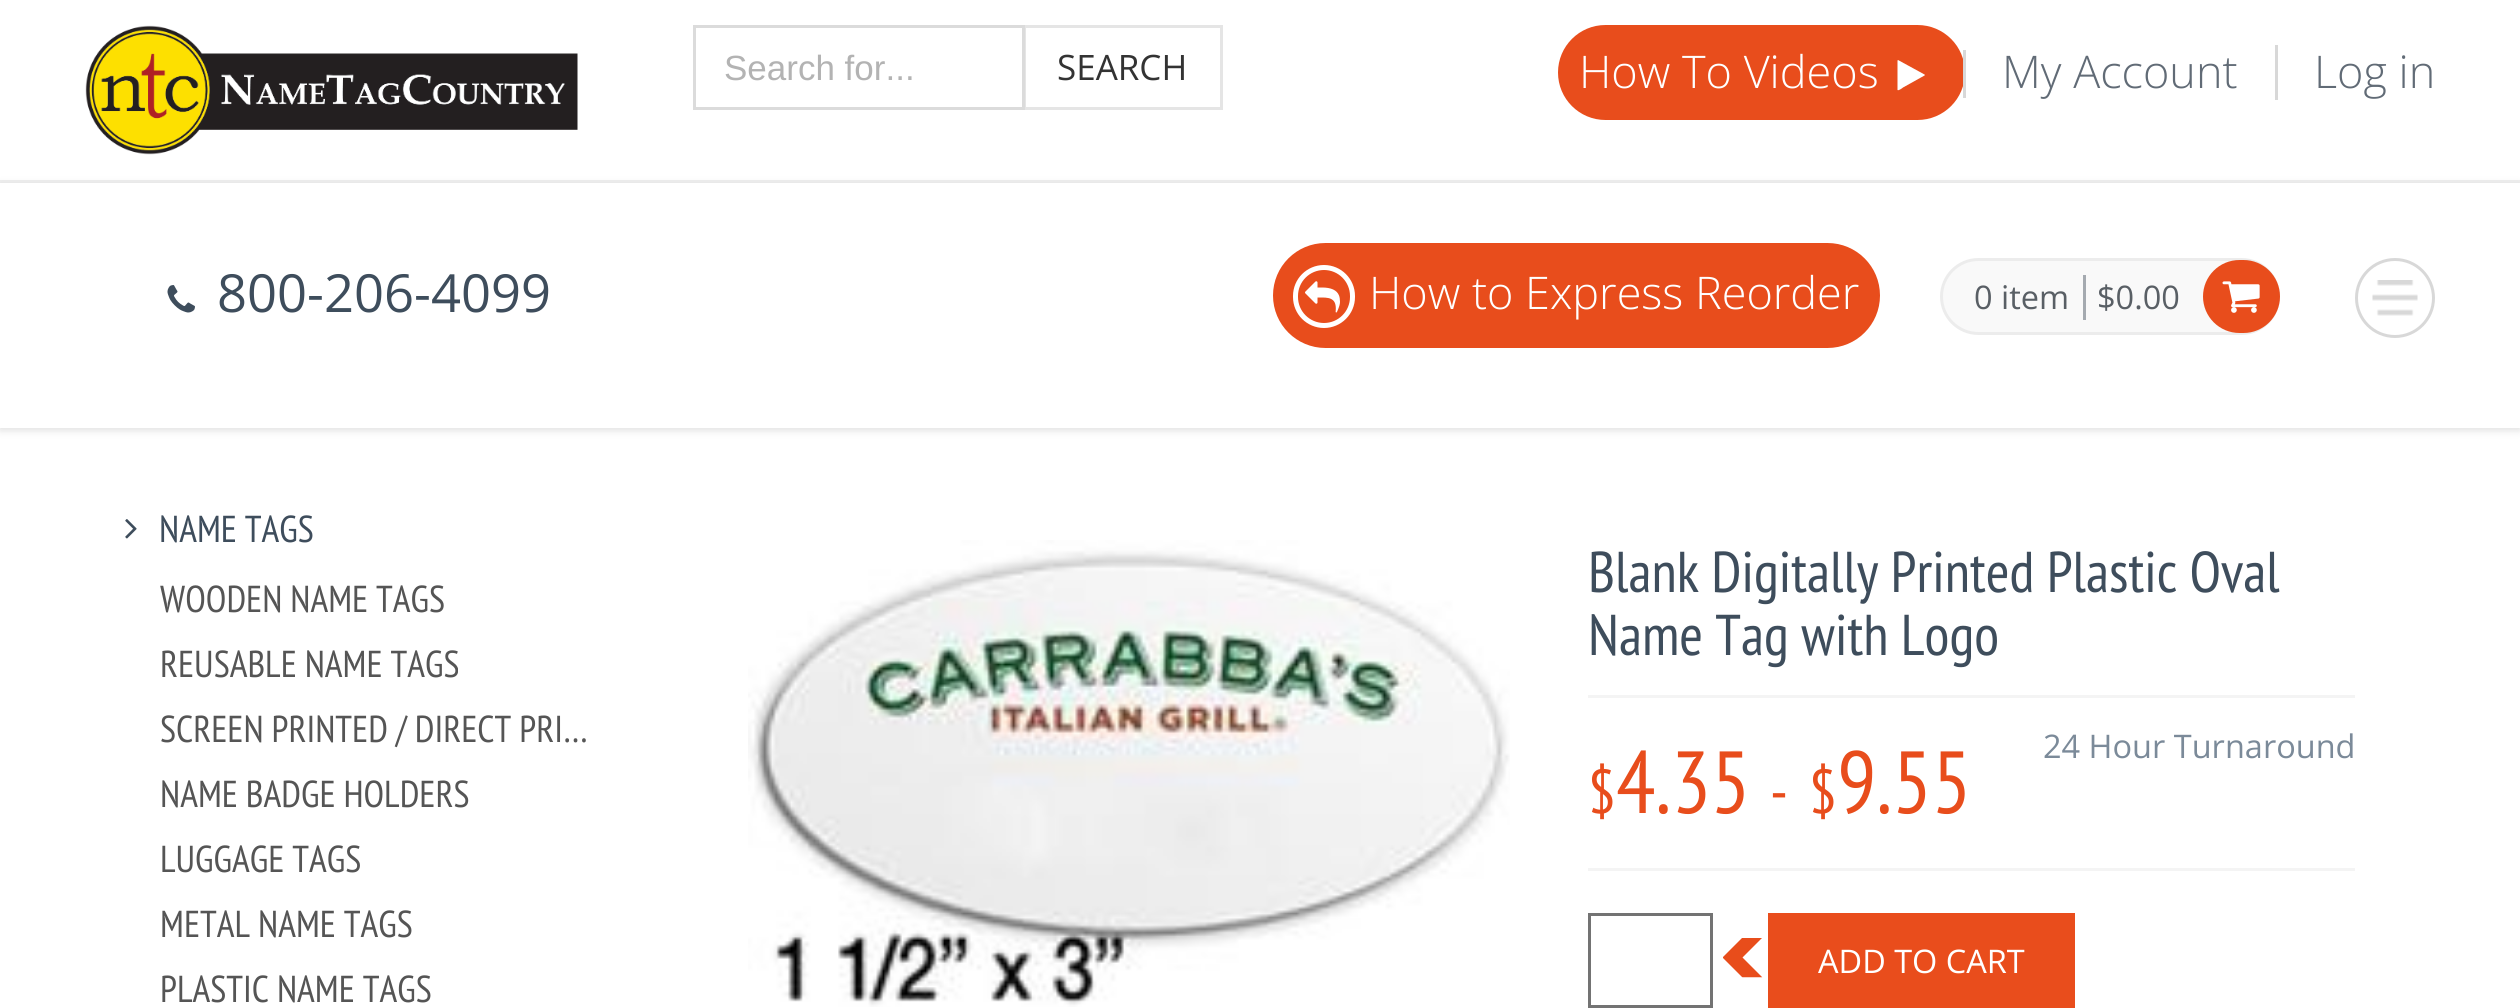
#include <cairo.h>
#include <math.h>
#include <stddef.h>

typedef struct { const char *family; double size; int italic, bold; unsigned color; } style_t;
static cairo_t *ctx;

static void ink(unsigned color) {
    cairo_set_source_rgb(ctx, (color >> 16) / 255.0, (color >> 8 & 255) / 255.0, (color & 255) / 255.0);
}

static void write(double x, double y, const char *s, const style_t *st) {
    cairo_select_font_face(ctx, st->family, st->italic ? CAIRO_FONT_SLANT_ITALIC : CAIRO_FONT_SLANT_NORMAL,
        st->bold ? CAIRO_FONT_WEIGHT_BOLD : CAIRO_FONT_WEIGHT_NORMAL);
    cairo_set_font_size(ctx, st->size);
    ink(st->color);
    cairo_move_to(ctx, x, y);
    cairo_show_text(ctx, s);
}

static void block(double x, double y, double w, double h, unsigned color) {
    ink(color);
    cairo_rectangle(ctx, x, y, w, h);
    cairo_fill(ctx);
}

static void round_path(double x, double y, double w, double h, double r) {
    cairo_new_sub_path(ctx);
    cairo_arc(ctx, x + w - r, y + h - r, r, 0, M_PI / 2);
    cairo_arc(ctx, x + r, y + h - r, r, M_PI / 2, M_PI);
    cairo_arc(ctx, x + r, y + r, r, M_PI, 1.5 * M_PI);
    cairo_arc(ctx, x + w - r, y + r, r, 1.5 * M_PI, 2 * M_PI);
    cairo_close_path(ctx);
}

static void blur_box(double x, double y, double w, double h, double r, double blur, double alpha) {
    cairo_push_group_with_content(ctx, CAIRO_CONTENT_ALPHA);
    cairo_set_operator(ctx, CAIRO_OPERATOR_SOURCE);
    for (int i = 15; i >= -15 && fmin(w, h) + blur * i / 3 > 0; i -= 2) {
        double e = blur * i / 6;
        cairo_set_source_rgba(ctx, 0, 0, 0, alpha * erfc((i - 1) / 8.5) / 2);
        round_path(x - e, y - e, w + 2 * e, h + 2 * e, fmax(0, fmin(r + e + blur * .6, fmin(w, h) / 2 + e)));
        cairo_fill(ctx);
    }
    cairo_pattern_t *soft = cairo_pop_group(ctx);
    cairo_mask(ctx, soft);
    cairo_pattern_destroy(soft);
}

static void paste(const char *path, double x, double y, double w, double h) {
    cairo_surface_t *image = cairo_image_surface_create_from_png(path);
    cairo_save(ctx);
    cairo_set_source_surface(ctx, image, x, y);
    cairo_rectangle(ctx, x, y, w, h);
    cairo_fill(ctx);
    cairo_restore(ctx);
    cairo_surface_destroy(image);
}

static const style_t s1 = {"Liberation Sans", 35, 0, 0, 0xb3b3b3};
static const style_t s2 = {"Open Sans", 35, 0, 0, 0x333333};
static const style_t s3 = {"Open Sans Light", 45, 0, 0, 0xffffff};
static const style_t s4 = {"Open Sans Light", 45, 0, 0, 0x616b76};
static const style_t s5 = {"Open Sans", 52.5, 0, 0, 0x3e4d5c};
static const style_t s6 = {"Open Sans", 32.5, 0, 0, 0x595f65};
static const style_t s7 = {"PT Sans Narrow", 37.5, 0, 0, 0x3e4d5c};
static const style_t s8 = {"PT Sans Narrow", 37.5, 0, 0, 0x555555};
static const style_t s9 = {"PT Sans Narrow", 57.5, 0, 0, 0x3e4d5c};
static const style_t s10 = {"Open Sans", 32.5, 0, 0, 0x7b8a99};
static const style_t s11 = {"PT Sans Narrow", 62, 0, 0, 0xe84d1c};
static const style_t s12 = {"PT Sans Narrow", 88, 0, 0, 0xe84d1c};
static const style_t s13 = {"Open Sans", 32.5, 0, 0, 0xffffff};

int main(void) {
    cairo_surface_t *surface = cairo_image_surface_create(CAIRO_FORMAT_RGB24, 2520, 1008);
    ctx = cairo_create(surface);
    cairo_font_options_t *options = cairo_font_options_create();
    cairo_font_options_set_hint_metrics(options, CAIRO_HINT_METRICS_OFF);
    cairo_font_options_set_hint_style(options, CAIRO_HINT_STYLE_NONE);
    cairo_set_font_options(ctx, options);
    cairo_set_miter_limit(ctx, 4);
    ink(0xffffff);
    cairo_paint(ctx);
    block(0, 180, 2520, 3, 0xeeeeee);
    paste("pic1.png", 85, 25, 493, 130);
    cairo_rectangle(ctx, 1024.5, 26.5, 197, 82);
    ink(0xe5e5e5);
    cairo_set_line_width(ctx, 3);
    cairo_stroke(ctx);
    cairo_rectangle(ctx, 694.5, 26.5, 329, 82);
    ink(0xdbdbdb);
    cairo_stroke(ctx);
    write(724, 80, "Search for...", &s1);
    write(1057, 80, "SEARCH", &s2);
    ink(0xe84d1c);
    round_path(1558, 25, 407, 95, 47.5);
    cairo_fill(ctx);
    block(1963, 50, 3, 48, 0xd8d8d8);
    write(1579, 88, "How To Videos", &s3);
    cairo_new_path(ctx);
    cairo_move_to(ctx, 1924.5, 75.5);
    cairo_line_to(ctx, 1903, 87.5);
    cairo_curve_to(ctx, 1902.5, 88, 1898.5, 91, 1897.5, 90);
    cairo_line_to(ctx, 1897.5, 60.5);
    cairo_line_to(ctx, 1898, 60);
    cairo_line_to(ctx, 1924.5, 74.5);
    cairo_line_to(ctx, 1925, 75);
    cairo_close_path(ctx);
    cairo_fill(ctx);
    block(2275, 45, 3, 55, 0xd8d8d8);
    write(2002, 88, "My Account", &s4);
    write(2314, 88, "Log in", &s4);
    ink(0xdddddd);
    blur_box(0, 185, 2520, 245, 0, 4, 1);
    block(0, 183, 2520, 245, 0xffffff);
    paste("pic2.png", 167, 285, 28, 28);
    write(217, 312, "800-206-4099", &s5);
    ink(0xe84d1c);
    round_path(1273, 243, 607, 105, 52.5);
    cairo_fill(ctx);
    round_path(1295.5, 267.5, 57, 58, 28.5);
    ink(0xffffff);
    cairo_set_line_width(ctx, 5);
    cairo_stroke(ctx);
    paste("pic3.png", 1305, 281, 35, 32);
    write(1369, 309, "How to Express Reorder", &s3);
    ink(0xf9f9f9);
    round_path(1941.5, 259.5, 337, 74, 37);
    cairo_fill_preserve(ctx);
    ink(0xececec);
    cairo_set_line_width(ctx, 3);
    cairo_stroke(ctx);
    write(1974, 309, "0 item", &s6);
    write(2097, 309, "$0.00", &s6);
    block(2083, 275, 3, 45, 0xa5aab0);
    ink(0xe84d1c);
    round_path(2203, 260, 77, 73, 36.5);
    cairo_fill(ctx);
    paste("pic4.png", 2222, 281, 38, 32);
    paste("pic5.png", 2372, 280, 46, 36);
    cairo_arc(ctx, 2395, 298, 38.5, 0, 2 * M_PI);
    ink(0xd8d8d8);
    cairo_stroke(ctx);
    paste("pic6.png", 125, 519, 12, 20);
    write(159, 542, "NAME TAGS", &s7);
    write(160, 612, "WOODEN NAME TAGS", &s8);
    write(160, 677, "REUSABLE NAME TAGS", &s8);
    write(160, 742, "SCREEN PRINTED / DIRECT PRI…", &s8);
    write(160, 807, "NAME BADGE HOLDERS", &s8);
    write(160, 872, "LUGGAGE TAGS", &s8);
    write(160, 937, "METAL NAME TAGS", &s8);
    write(160, 1002, "PLASTIC NAME TAGS", &s8);
    paste("pic7.png", 748, 540, 762, 467);
    block(1588, 695, 767, 3, 0xf4f4f4);
    write(1588, 592, "Blank Digitally Printed Plastic Oval", &s9);
    write(1588, 655, "Name Tag with Logo", &s9);
    block(1588, 868, 767, 3, 0xf4f4f4);
    write(2043, 758, "24 Hour Turnaround", &s10);
    write(1588, 813, "$", &s11);
    write(1616, 813, "4.35", &s12);
    write(1770, 813, "-", &s11);
    write(1809, 813, "$", &s11);
    write(1837, 813, "9.55", &s12);
    cairo_rectangle(ctx, 1589.5, 914.5, 122, 92);
    ink(0x737373);
    cairo_stroke(ctx);
    paste("pic8.png", 1723, 938, 40, 40);
    block(1768, 913, 307, 95, 0xe94d1c);
    write(1818, 973, "ADD TO CART", &s13);
    cairo_surface_write_to_png(surface, "screenshot.png");
    cairo_font_options_destroy(options);
    cairo_destroy(ctx);
    cairo_surface_destroy(surface);
    return 0;
}
